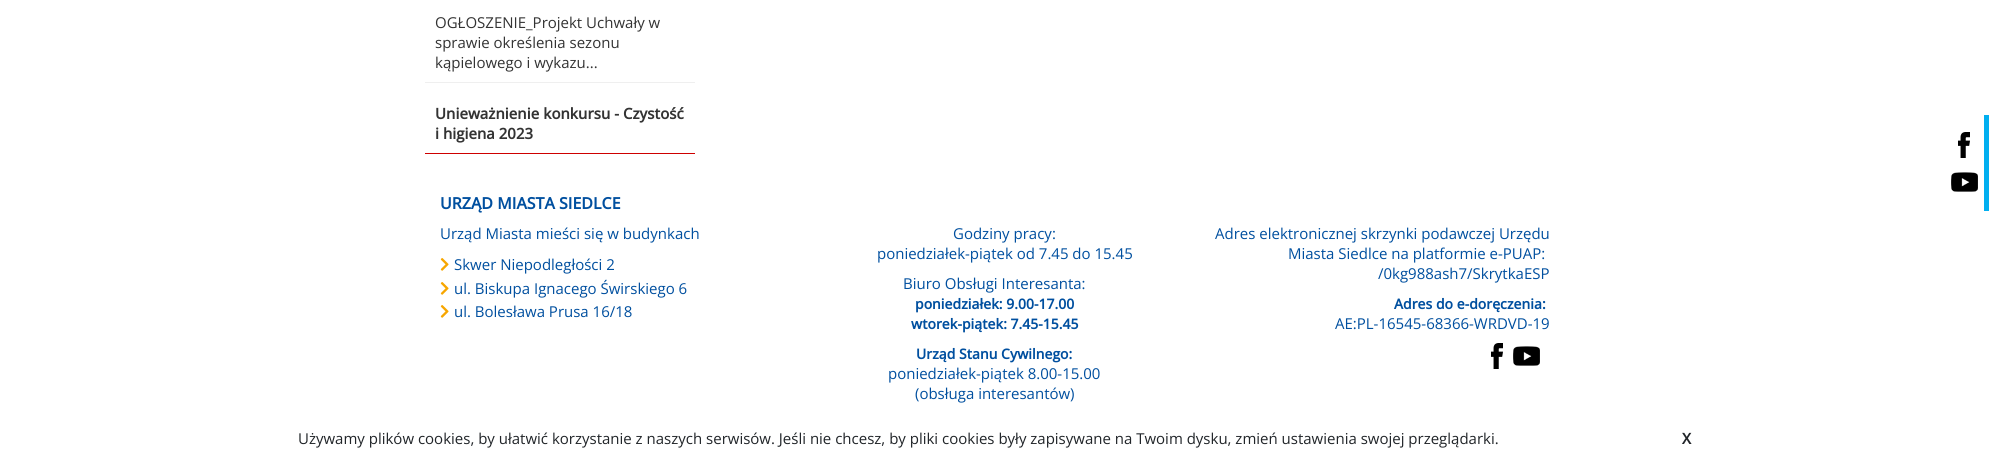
#include <cairo.h>
#include <math.h>
#include <stddef.h>

typedef struct { const char *family; double size; int italic, bold; unsigned color; } style_t;
static cairo_t *ctx;

static void ink(unsigned color) {
    cairo_set_source_rgb(ctx, (color >> 16) / 255.0, (color >> 8 & 255) / 255.0, (color & 255) / 255.0);
}

static void write(double x, double y, const char *s, const style_t *st) {
    cairo_select_font_face(ctx, st->family, st->italic ? CAIRO_FONT_SLANT_ITALIC : CAIRO_FONT_SLANT_NORMAL,
        st->bold ? CAIRO_FONT_WEIGHT_BOLD : CAIRO_FONT_WEIGHT_NORMAL);
    cairo_set_font_size(ctx, st->size);
    ink(st->color);
    cairo_move_to(ctx, x, y);
    cairo_show_text(ctx, s);
}

static void block(double x, double y, double w, double h, unsigned color) {
    ink(color);
    cairo_rectangle(ctx, x, y, w, h);
    cairo_fill(ctx);
}

static void paste(const char *path, double x, double y, double w, double h) {
    cairo_surface_t *image = cairo_image_surface_create_from_png(path);
    cairo_save(ctx);
    cairo_set_source_surface(ctx, image, x, y);
    cairo_rectangle(ctx, x, y, w, h);
    cairo_fill(ctx);
    cairo_restore(ctx);
    cairo_surface_destroy(image);
}

static const style_t s1 = {"Open Sans", 15, 0, 0, 0x333333};
static const style_t s2 = {"Open Sans", 15, 0, 1, 0x333333};
static const style_t s3 = {"Open Sans", 16, 0, 1, 0x004f9f};
static const style_t s4 = {"Open Sans", 15, 0, 0, 0x004f9f};
static const style_t s5 = {"Open Sans", 14, 0, 1, 0x004f9f};
static const style_t s6 = {"Open Sans", 15, 0, 0, 0x212529};
static const style_t s7 = {"Open Sans", 15, 0, 1, 0x212529};

int main(void) {
    cairo_surface_t *surface = cairo_image_surface_create(CAIRO_FORMAT_RGB24, 1989, 459);
    ctx = cairo_create(surface);
    cairo_font_options_t *options = cairo_font_options_create();
    cairo_font_options_set_hint_metrics(options, CAIRO_HINT_METRICS_OFF);
    cairo_font_options_set_hint_style(options, CAIRO_HINT_STYLE_NONE);
    cairo_set_font_options(ctx, options);
    cairo_set_miter_limit(ctx, 4);
    ink(0xffffff);
    cairo_paint(ctx);
    block(425, 82, 270, 1, 0xefefef);
    write(435, 28, "OGŁOSZENIE_Projekt Uchwały w", &s1);
    write(435, 48, "sprawie określenia sezonu", &s1);
    write(435, 68, "kąpielowego i wykazu...", &s1);
    block(425, 153, 270, 1, 0xce0000);
    write(435, 119, "Unieważnienie konkursu - Czystość", &s2);
    write(435, 139, "i higiena 2023", &s2);
    block(1984, 115, 5, 96, 0x01aff0);
    paste("pic1.png", 1958, 132, 12, 26);
    paste("pic2.png", 1951, 172, 27, 20);
    write(440, 209, "URZĄD MIASTA SIEDLCE", &s3);
    write(440, 239, "Urząd Miasta mieści się w budynkach", &s4);
    paste("pic3.png", 440, 258, 9, 13);
    write(454, 270, "Skwer Niepodległości 2", &s4);
    paste("pic3.png", 440, 282, 9, 13);
    write(454, 294, "ul. Biskupa Ignacego Świrskiego 6", &s4);
    paste("pic3.png", 440, 305, 9, 13);
    write(454, 317, "ul. Bolesława Prusa 16/18", &s4);
    write(953, 239, "Godziny pracy:", &s4);
    write(877, 259, "poniedziałek-piątek od 7.45 do 15.45", &s4);
    write(903, 289, "Biuro Obsługi Interesanta:", &s4);
    write(915, 309, "poniedziałek: 9.00-17.00", &s5);
    write(911, 329, "wtorek-piątek: 7.45-15.45", &s5);
    write(916, 359, "Urząd Stanu Cywilnego:", &s5);
    write(888, 379, "poniedziałek-piątek 8.00-15.00", &s4);
    write(915, 399, "(obsługa interesantów)", &s4);
    write(1215, 239, "Adres elektronicznej skrzynki podawczej Urzędu", &s4);
    write(1288, 259, "Miasta Siedlce na platformie e-PUAP:", &s4);
    write(1378, 279, "/0kg988ash7/SkrytkaESP", &s4);
    write(1394, 309, "Adres do e-doręczenia:", &s5);
    write(1335, 329, "AE:PL-16545-68366-WRDVD-19", &s4);
    paste("pic1.png", 1491, 343, 12, 26);
    paste("pic2.png", 1513, 346, 27, 20);
    write(298, 444, "Używamy plików cookies, by ułatwić korzystanie z naszych serwisów. Jeśli nie chcesz, by pliki cookies były zapisywane na Twoim dysku, zmień ustawienia swojej przeglądarki.", &s6);
    write(1682, 444, "X", &s7);
    cairo_surface_write_to_png(surface, "screenshot.png");
    cairo_font_options_destroy(options);
    cairo_destroy(ctx);
    cairo_surface_destroy(surface);
    return 0;
}
